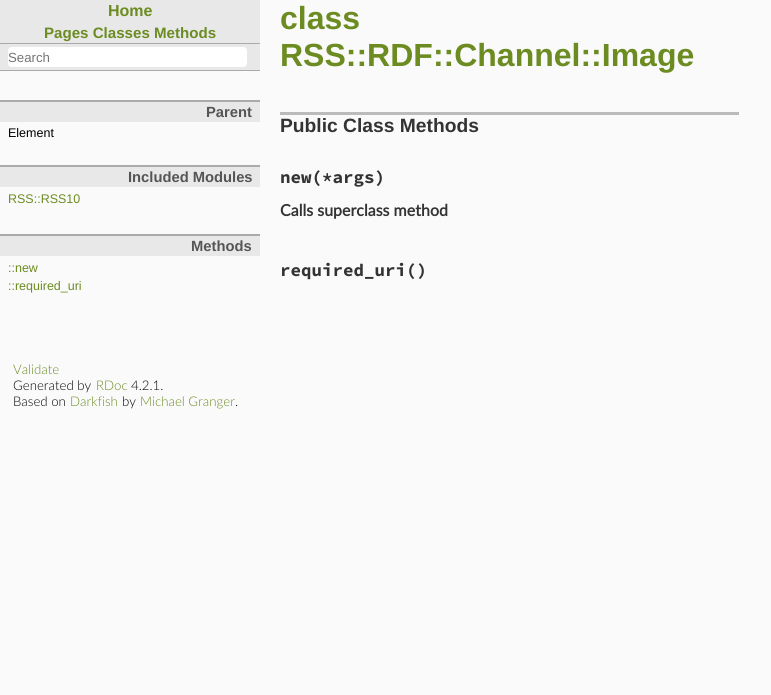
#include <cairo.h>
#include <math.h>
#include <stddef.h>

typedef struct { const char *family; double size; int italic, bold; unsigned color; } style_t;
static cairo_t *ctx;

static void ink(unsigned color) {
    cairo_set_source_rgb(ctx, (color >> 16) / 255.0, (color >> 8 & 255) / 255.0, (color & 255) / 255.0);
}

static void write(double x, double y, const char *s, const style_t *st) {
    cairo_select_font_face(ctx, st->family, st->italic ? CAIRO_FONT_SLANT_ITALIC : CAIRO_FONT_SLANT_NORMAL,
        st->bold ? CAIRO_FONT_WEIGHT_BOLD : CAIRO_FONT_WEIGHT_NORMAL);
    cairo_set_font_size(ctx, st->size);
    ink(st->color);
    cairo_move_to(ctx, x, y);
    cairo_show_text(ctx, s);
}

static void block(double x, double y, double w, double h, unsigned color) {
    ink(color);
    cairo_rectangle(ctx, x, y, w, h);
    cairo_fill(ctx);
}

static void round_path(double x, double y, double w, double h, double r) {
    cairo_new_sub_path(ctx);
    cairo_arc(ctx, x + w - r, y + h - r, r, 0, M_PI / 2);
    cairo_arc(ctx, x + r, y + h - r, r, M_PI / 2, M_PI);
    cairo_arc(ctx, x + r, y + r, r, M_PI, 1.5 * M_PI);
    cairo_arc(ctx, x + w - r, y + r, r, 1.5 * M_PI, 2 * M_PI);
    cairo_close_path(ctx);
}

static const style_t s1 = {"Liberation Sans", 16, 0, 1, 0x6c8c22};
static const style_t s2 = {"Liberation Sans", 15.1, 0, 1, 0x6c8c22};
static const style_t s3 = {"Liberation Sans", 13.25, 0, 0, 0x757575};
static const style_t s4 = {"Liberation Sans", 14.75, 0, 1, 0x555555};
static const style_t s5 = {"Liberation Sans", 12.5, 0, 0, 0x000000};
static const style_t s6 = {"Liberation Sans", 12.5, 0, 0, 0x6c8c22};
static const style_t s7 = {"Liberation Sans", 32, 0, 1, 0x6c8c22};
static const style_t s8 = {"Liberation Sans", 19.25, 0, 1, 0x333333};
static const style_t s9 = {"Source Code Pro", 17.5, 0, 1, 0x333333};
static const style_t s10 = {"Lato", 16, 0, 1, 0x333333};
static const style_t s11 = {"Lato Light", 13.25, 0, 0, 0x6c8c22};
static const style_t s12 = {"Lato Light", 13.25, 0, 0, 0x000000};

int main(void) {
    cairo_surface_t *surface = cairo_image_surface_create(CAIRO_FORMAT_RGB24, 771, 695);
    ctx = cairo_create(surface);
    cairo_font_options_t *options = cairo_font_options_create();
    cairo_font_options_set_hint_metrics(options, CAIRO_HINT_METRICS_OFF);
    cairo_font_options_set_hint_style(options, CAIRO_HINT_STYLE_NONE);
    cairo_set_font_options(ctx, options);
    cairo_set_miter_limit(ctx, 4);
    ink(0xfafafa);
    cairo_paint(ctx);
    block(0, 0, 260, 43, 0xe8e8e8);
    write(108, 16, "Home", &s1);
    write(44, 38, "Pages Classes Methods", &s2);
    block(0, 44, 260, 26, 0xe8e8e8);
    block(0, 43, 260, 1, 0xaaaaaa);
    block(0, 70, 260, 1, 0xaaaaaa);
    ink(0xffffff);
    round_path(8, 47, 239, 20, 4);
    cairo_fill(ctx);
    write(8, 62, "Search", &s3);
    block(0, 100, 260, 2, 0xaaaaaa);
    block(0, 102, 260, 20, 0xe8e8e8);
    write(206, 117, "Parent", &s4);
    write(8, 137, "Element", &s5);
    block(0, 165, 260, 2, 0xaaaaaa);
    block(0, 167, 260, 20, 0xe8e8e8);
    write(128, 182, "Included Modules", &s4);
    write(8, 203, "RSS::RSS10", &s6);
    block(0, 234, 260, 2, 0xaaaaaa);
    block(0, 236, 260, 20, 0xe8e8e8);
    write(191, 251, "Methods", &s4);
    write(8, 272, "::new", &s6);
    write(8, 290, "::required_uri", &s6);
    write(280, 29, "class", &s7);
    write(280, 66, "RSS::RDF::Channel::Image", &s7);
    block(280, 112, 459, 3, 0xbbbbbb);
    write(280, 132, "Public Class Methods", &s8);
    write(280, 183, "new(*args)", &s9);
    write(280, 216, "Calls superclass method", &s10);
    write(280, 276, "required_uri()", &s9);
    write(13, 374, "Validate", &s11);
    write(13, 390, "Generated by", &s12);
    write(96, 390, "RDoc", &s11);
    write(131, 390, "4.2.1.", &s12);
    write(13, 406, "Based on", &s12);
    write(70, 406, "Darkfish", &s11);
    write(122, 406, "by", &s12);
    write(140, 406, "Michael Granger", &s11);
    write(235, 406, ".", &s12);
    cairo_surface_write_to_png(surface, "screenshot.png");
    cairo_font_options_destroy(options);
    cairo_destroy(ctx);
    cairo_surface_destroy(surface);
    return 0;
}
